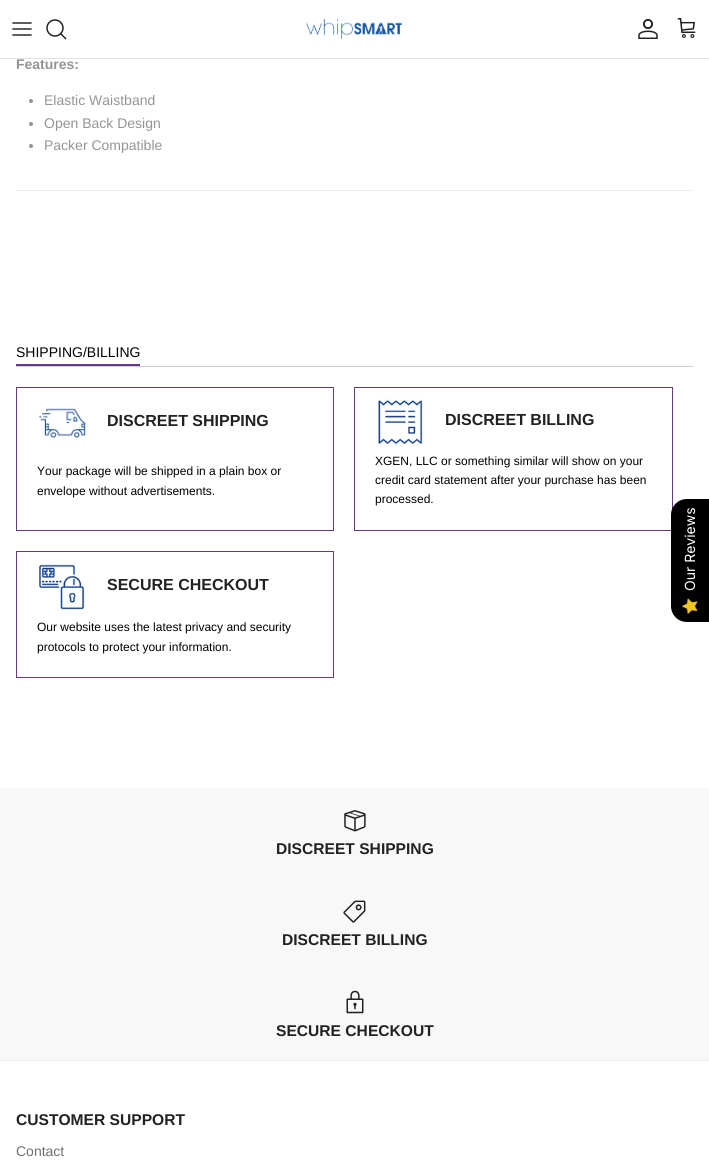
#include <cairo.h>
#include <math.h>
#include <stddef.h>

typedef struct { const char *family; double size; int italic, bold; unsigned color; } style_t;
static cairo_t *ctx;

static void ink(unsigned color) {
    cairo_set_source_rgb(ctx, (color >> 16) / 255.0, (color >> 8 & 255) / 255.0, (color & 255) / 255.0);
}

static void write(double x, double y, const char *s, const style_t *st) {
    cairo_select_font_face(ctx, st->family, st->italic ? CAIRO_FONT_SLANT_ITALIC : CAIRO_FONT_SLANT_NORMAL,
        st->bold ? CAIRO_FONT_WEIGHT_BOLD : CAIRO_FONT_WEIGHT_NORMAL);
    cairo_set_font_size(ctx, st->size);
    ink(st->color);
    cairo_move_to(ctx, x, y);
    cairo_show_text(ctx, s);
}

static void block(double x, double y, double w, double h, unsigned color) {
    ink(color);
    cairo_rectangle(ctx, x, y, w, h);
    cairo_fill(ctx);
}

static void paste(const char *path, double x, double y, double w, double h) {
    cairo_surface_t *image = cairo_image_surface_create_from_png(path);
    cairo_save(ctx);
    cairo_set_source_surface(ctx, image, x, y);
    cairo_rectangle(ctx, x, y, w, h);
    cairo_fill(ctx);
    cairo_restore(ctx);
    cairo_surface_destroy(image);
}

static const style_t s1 = {"Liberation Sans", 14, 0, 1, 0x929598};
static const style_t s2 = {"Liberation Sans", 14, 0, 0, 0x929598};
static const style_t s3 = {"Liberation Sans", 14, 0, 0, 0x000000};
static const style_t s4 = {"Liberation Sans", 16, 0, 1, 0x202223};
static const style_t s5 = {"Liberation Sans", 12, 0, 0, 0x000000};
static const style_t s6 = {"Inter", 14, 0, 0, 0xffffff};
static const style_t s7 = {"Liberation Sans", 15.6, 0, 1, 0x202223};
static const style_t s8 = {"Liberation Sans", 14, 0, 0, 0x6d7175};

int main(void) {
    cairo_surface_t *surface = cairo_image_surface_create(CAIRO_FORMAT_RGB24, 709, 1160);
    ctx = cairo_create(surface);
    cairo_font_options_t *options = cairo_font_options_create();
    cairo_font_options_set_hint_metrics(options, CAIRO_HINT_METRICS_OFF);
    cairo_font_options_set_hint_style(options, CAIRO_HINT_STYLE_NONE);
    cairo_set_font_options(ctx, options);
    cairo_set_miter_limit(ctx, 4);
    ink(0xffffff);
    cairo_paint(ctx);
    block(0, 58, 709, 1, 0xe2e2e2);
    paste("pic1.png", 12, 22, 20, 14);
    cairo_arc(ctx, 55, 28, 8, 0, 2 * M_PI);
    ink(0x202223);
    cairo_set_line_width(ctx, 1.5);
    cairo_stroke(ctx);
    cairo_new_path(ctx);
    cairo_move_to(ctx, 61, 34);
    cairo_line_to(ctx, 65.5, 38.5);
    cairo_set_line_cap(ctx, CAIRO_LINE_CAP_SQUARE);
    cairo_stroke(ctx);
    paste("pic2.png", 306, 18, 97, 22);
    paste("pic3.png", 638, 19, 20, 20);
    paste("pic4.png", 677, 18, 19, 20);
    block(16, 190, 677, 1, 0xe9eaea);
    write(16, 69, "Features:", &s1);
    cairo_new_path(ctx);
    cairo_arc(ctx, 31, 101, 2, 0, 2 * M_PI);
    cairo_fill(ctx);
    write(44, 105, "Elastic Waistband", &s2);
    cairo_new_path(ctx);
    cairo_arc(ctx, 31, 124, 2, 0, 2 * M_PI);
    cairo_fill(ctx);
    write(44, 128, "Open Back Design", &s2);
    cairo_new_path(ctx);
    cairo_arc(ctx, 31, 146, 2, 0, 2 * M_PI);
    cairo_fill(ctx);
    write(44, 150, "Packer Compatible", &s2);
    block(16, 364, 124, 2, 0x663885);
    write(16, 357, "SHIPPING/BILLING", &s3);
    block(16, 366, 677, 1, 0xcccccc);
    cairo_rectangle(ctx, 16.5, 387.5, 317, 143);
    ink(0x663885);
    cairo_set_line_width(ctx, 1);
    cairo_set_line_cap(ctx, CAIRO_LINE_CAP_BUTT);
    cairo_stroke(ctx);
    paste("pic5.png", 38, 407, 49, 32);
    write(107, 426, "DISCREET SHIPPING", &s4);
    write(37, 475, "Your package will be shipped in a plain box or", &s5);
    write(37, 495, "envelope without advertisements.", &s5);
    cairo_rectangle(ctx, 354.5, 387.5, 318, 143);
    ink(0x663885);
    cairo_stroke(ctx);
    paste("pic6.png", 375, 398, 49, 48);
    write(445, 425, "DISCREET BILLING", &s4);
    write(375, 465, "XGEN, LLC or something similar will show on your", &s5);
    write(375, 484, "credit card statement after your purchase has been", &s5);
    write(375, 503, "processed.", &s5);
    cairo_rectangle(ctx, 16.5, 551.5, 317, 126);
    ink(0x663885);
    cairo_stroke(ctx);
    paste("pic7.png", 37, 562, 50, 48);
    write(107, 590, "SECURE CHECKOUT", &s4);
    write(37, 631, "Our website uses the latest privacy and security", &s5);
    write(37, 651, "protocols to protect your information.", &s5);
    cairo_new_path(ctx);
    cairo_move_to(ctx, 671, 606);
    cairo_line_to(ctx, 671, 515);
    cairo_curve_to(ctx, 671, 506, 678, 499, 687, 499);
    cairo_line_to(ctx, 709, 499);
    cairo_line_to(ctx, 709, 622);
    cairo_line_to(ctx, 687, 622);
    cairo_curve_to(ctx, 678, 622, 671, 615, 671, 606);
    cairo_close_path(ctx);
    cairo_fill(ctx);
    cairo_save(ctx);
    cairo_translate(ctx, 695, 591);
    cairo_rotate(ctx, -90 * M_PI / 180);
    write(0, 0, "Our Reviews", &s6);
    cairo_restore(ctx);
    paste("pic8.png", 682, 598, 16, 16);
    block(0, 788, 709, 272, 0xf8f8f8);
    paste("pic9.png", 344, 810, 22, 22);
    write(276, 854, "DISCREET SHIPPING", &s7);
    paste("pic10.png", 343, 900, 23, 23);
    write(282, 945, "DISCREET BILLING", &s7);
    paste("pic11.png", 346, 990, 18, 24);
    write(276, 1036, "SECURE CHECKOUT", &s7);
    block(0, 1060, 709, 1, 0xeeeeee);
    write(16, 1125, "CUSTOMER SUPPORT", &s7);
    write(16, 1156, "Contact", &s8);
    cairo_surface_write_to_png(surface, "screenshot.png");
    cairo_font_options_destroy(options);
    cairo_destroy(ctx);
    cairo_surface_destroy(surface);
    return 0;
}
